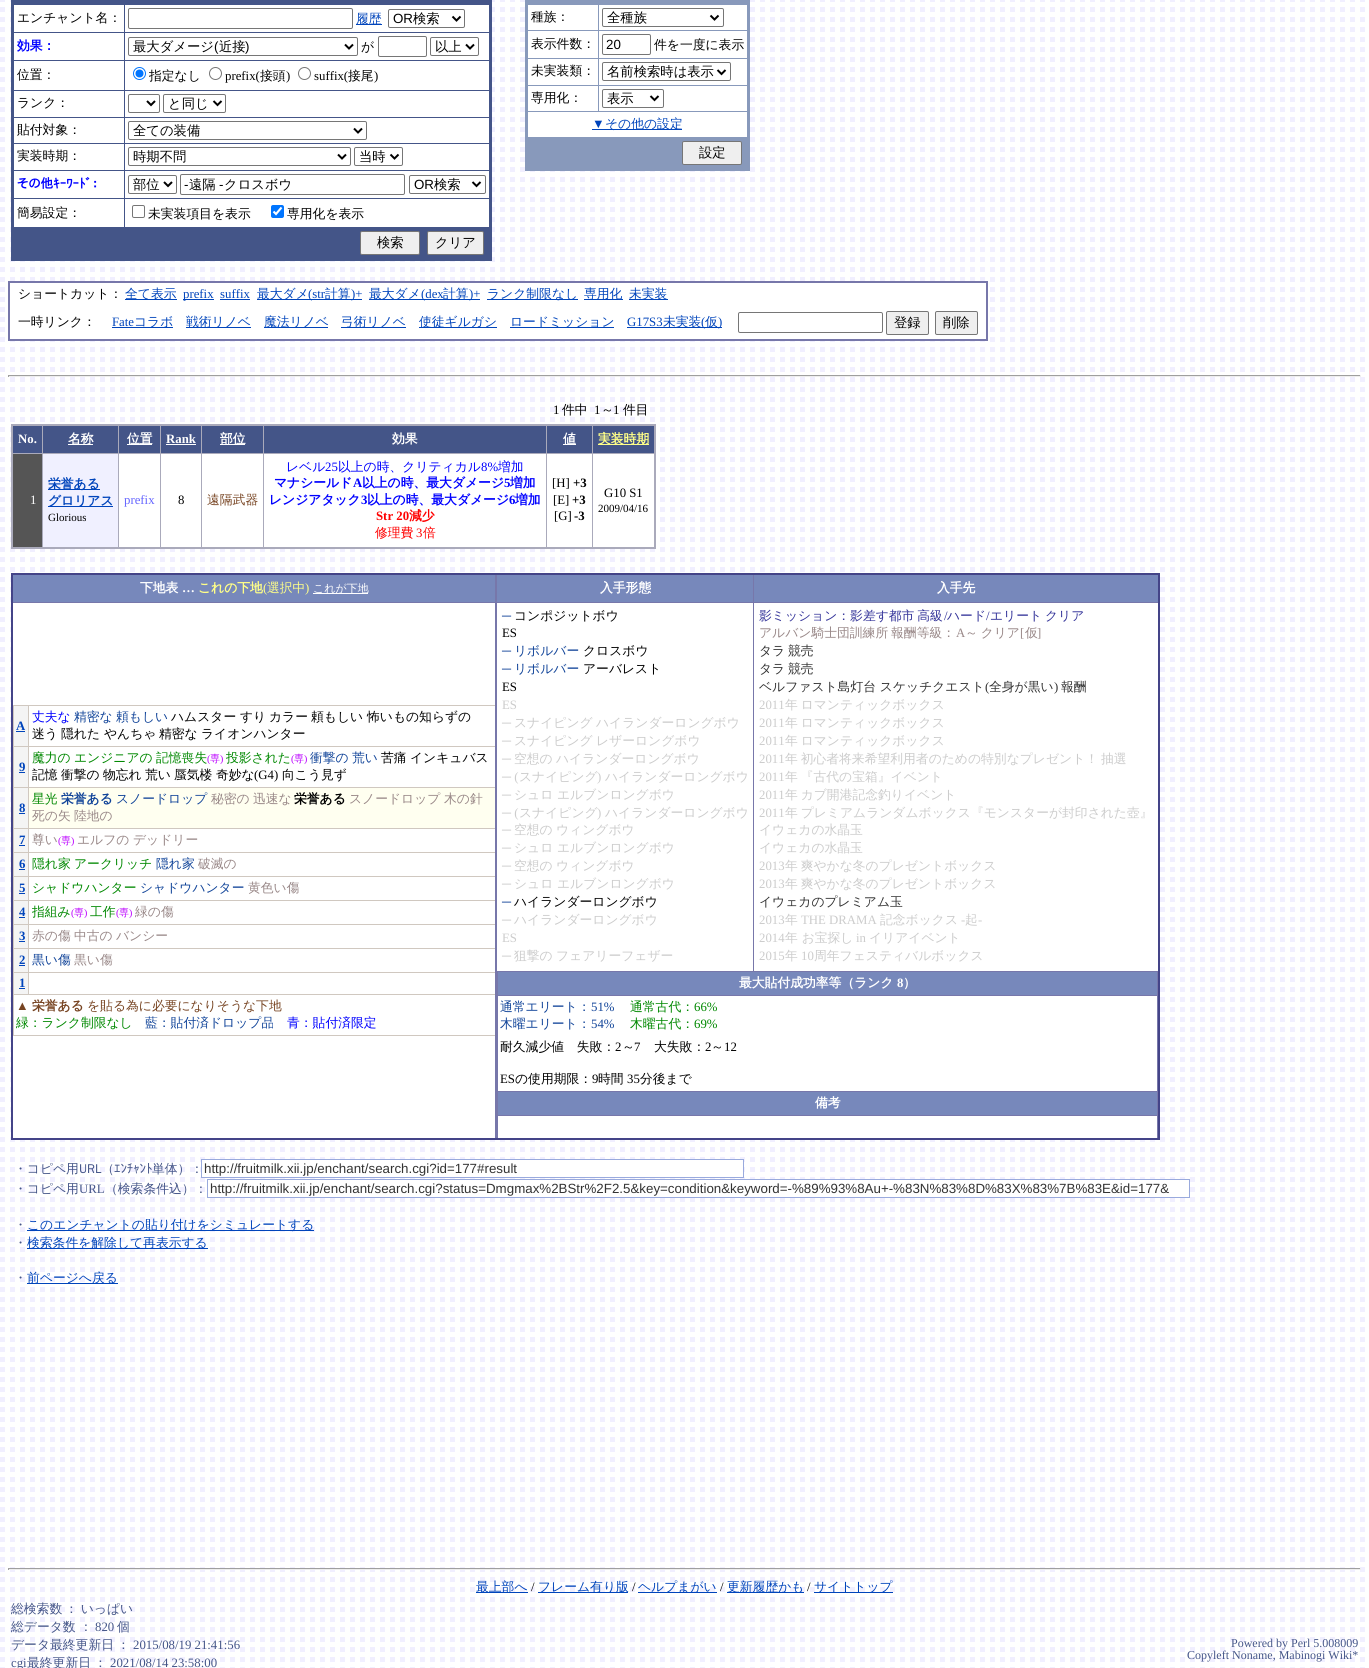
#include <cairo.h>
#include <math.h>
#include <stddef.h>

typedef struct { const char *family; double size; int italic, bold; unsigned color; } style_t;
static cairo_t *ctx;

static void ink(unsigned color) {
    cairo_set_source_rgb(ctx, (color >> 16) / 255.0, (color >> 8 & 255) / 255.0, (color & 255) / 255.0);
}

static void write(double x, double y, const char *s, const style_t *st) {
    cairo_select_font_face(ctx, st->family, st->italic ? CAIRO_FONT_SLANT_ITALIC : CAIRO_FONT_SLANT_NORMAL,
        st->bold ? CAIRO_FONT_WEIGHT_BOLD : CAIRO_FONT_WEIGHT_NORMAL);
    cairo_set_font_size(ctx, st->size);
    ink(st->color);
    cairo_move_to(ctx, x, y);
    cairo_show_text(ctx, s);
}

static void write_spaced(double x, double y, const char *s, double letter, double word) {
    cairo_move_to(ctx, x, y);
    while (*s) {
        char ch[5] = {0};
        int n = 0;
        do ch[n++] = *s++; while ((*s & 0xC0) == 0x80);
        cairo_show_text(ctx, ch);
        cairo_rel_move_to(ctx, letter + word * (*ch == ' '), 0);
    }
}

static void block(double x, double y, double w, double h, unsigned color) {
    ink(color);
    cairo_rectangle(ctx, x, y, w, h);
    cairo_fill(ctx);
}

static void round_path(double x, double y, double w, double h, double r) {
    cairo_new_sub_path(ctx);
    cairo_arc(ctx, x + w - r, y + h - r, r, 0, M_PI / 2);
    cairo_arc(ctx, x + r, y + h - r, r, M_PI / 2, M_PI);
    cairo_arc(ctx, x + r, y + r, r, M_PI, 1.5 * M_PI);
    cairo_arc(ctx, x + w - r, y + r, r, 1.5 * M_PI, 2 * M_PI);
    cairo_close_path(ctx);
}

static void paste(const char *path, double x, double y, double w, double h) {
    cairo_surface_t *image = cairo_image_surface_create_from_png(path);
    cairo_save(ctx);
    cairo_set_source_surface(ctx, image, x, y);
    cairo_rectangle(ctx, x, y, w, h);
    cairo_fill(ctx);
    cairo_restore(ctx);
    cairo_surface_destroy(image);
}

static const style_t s1 = {"WenQuanYi Zen Hei Medium", 12.8, 0, 0, 0x000000};
static const style_t s2 = {"WenQuanYi Zen Hei Medium", 12.8, 0, 0, 0x0044bb};
static const style_t s3 = {"Liberation Sans", 13.33, 0, 0, 0x000000};
static const style_t s4 = {"WenQuanYi Zen Hei Medium", 13.33, 0, 0, 0x000000};
static const style_t s5 = {"WenQuanYi Zen Hei", 12.8, 0, 1, 0x0000ff};
static const style_t s6 = {"Liberation Serif", 12.8, 0, 0, 0x000000};
static const style_t s7 = {"IPAPGothic", 12.8, 0, 1, 0x0000ff};
static const style_t s8 = {"Liberation Serif", 12.8, 0, 0, 0x0044bb};
static const style_t s9 = {"Liberation Serif", 12.8, 0, 1, 0xffffff};
static const style_t s10 = {"WenQuanYi Zen Hei", 12.8, 0, 1, 0xffffff};
static const style_t s11 = {"WenQuanYi Zen Hei", 12.8, 0, 1, 0xffff88};
static const style_t s12 = {"Liberation Serif", 12.8, 0, 0, 0xffffff};
static const style_t s13 = {"WenQuanYi Zen Hei", 12.8, 0, 1, 0x0044bb};
static const style_t s14 = {"Liberation Serif", 11, 0, 0, 0x000000};
static const style_t s15 = {"Liberation Serif", 12.8, 0, 0, 0x6666ff};
static const style_t s16 = {"WenQuanYi Zen Hei Medium", 12.8, 0, 0, 0x774422};
static const style_t s17 = {"WenQuanYi Zen Hei Medium", 12.8, 0, 0, 0x0000ff};
static const style_t s18 = {"Liberation Serif", 12.8, 0, 0, 0x0000ff};
static const style_t s19 = {"Liberation Serif", 12.8, 0, 1, 0x0000ff};
static const style_t s20 = {"Liberation Serif", 12.8, 0, 1, 0xff0000};
static const style_t s21 = {"WenQuanYi Zen Hei", 12.8, 0, 1, 0xff0000};
static const style_t s22 = {"WenQuanYi Zen Hei Medium", 12.8, 0, 0, 0xff0000};
static const style_t s23 = {"Liberation Serif", 12.8, 0, 0, 0xff0000};
static const style_t s24 = {"Liberation Serif", 12.8, 0, 1, 0x000000};
static const style_t s25 = {"Liberation Serif", 12.8, 0, 0, 0xffff88};
static const style_t s26 = {"WenQuanYi Zen Hei Medium", 12.8, 0, 0, 0xffff88};
static const style_t s27 = {"WenQuanYi Zen Hei Medium", 11, 0, 0, 0xffffff};
static const style_t s28 = {"Liberation Serif", 12.8, 0, 1, 0x0044bb};
static const style_t s29 = {"WenQuanYi Zen Hei Medium", 12.8, 0, 0, 0x114499};
static const style_t s30 = {"WenQuanYi Zen Hei Medium", 12.8, 0, 0, 0x008800};
static const style_t s31 = {"Liberation Serif", 10, 0, 0, 0xbb00ff};
static const style_t s32 = {"WenQuanYi Zen Hei Medium", 10, 0, 0, 0xbb00ff};
static const style_t s33 = {"WenQuanYi Zen Hei", 12.8, 0, 1, 0x114499};
static const style_t s34 = {"WenQuanYi Zen Hei Medium", 12.8, 0, 0, 0x998888};
static const style_t s35 = {"WenQuanYi Zen Hei", 12.8, 0, 1, 0x000000};
static const style_t s36 = {"Liberation Serif", 12.8, 0, 0, 0x774422};
static const style_t s37 = {"WenQuanYi Zen Hei", 12.8, 0, 1, 0x774422};
static const style_t s38 = {"Liberation Serif", 12.8, 0, 0, 0x114499};
static const style_t s39 = {"Liberation Serif", 12.8, 0, 0, 0xcccccc};
static const style_t s40 = {"WenQuanYi Zen Hei Medium", 12.8, 0, 0, 0xcccccc};
static const style_t s41 = {"Liberation Serif", 12.8, 0, 0, 0x333399};
static const style_t s42 = {"WenQuanYi Zen Hei Medium", 12.8, 0, 0, 0x333399};
static const style_t s43 = {"Liberation Serif", 12.8, 0, 0, 0x998888};
static const style_t s44 = {"WenQuanYi Zen Hei Medium", 12.8, 0, 0, 0x333333};
static const style_t s45 = {"Liberation Serif", 12.8, 0, 0, 0x333333};
static const style_t s46 = {"Liberation Serif", 12.8, 0, 0, 0x008800};
static const style_t s47 = {"WenQuanYi Zen Hei Medium", 12.8, 0, 0, 0x445588};
static const style_t s48 = {"IPAPGothic", 12.8, 0, 0, 0x445588};
static const style_t s49 = {"Liberation Sans", 13.33, 0, 0, 0x333333};
static const style_t s50 = {"Liberation Serif", 12.8, 0, 0, 0x445588};
static const style_t s51 = {"Liberation Serif", 12, 0, 0, 0x445588};

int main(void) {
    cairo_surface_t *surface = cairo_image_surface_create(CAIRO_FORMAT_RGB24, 1369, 1668);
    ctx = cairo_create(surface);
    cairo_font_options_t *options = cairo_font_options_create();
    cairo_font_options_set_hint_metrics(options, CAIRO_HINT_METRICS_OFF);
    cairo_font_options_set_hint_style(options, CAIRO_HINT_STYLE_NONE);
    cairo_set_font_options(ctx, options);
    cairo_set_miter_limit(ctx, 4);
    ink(0xffffff);
    cairo_paint(ctx);
    paste("pic1.png", 0, 0, 1365, 1668);
    block(11, 0, 481, 261, 0x445588);
    block(14, 5, 110, 27, 0xffffff);
    write(17, 22, "エンチャント名：", &s1);
    block(125, 5, 364, 27, 0xffffff);
    round_path(128.5, 8.5, 224, 20, 1.5);
    ink(0x767676);
    cairo_set_line_width(ctx, 1);
    cairo_stroke(ctx);
    block(356, 24, 26, 1, 0x0044bb);
    write(356, 23, "履歴", &s2);
    round_path(388.5, 9.5, 76, 18, 1.5);
    ink(0x767676);
    cairo_stroke(ctx);
    cairo_new_path(ctx);
    cairo_move_to(ctx, 452.5, 16.5);
    cairo_line_to(ctx, 456.5, 20.5);
    cairo_line_to(ctx, 460.5, 16.5);
    ink(0x000000);
    cairo_set_line_width(ctx, 2);
    cairo_stroke(ctx);
    write(393, 23, "OR", &s3);
    write(413, 23, "検索", &s4);
    block(14, 33, 110, 27, 0xffffff);
    write(17, 50, "効果：", &s5);
    block(125, 33, 364, 27, 0xffffff);
    round_path(128.5, 37.5, 229, 18, 1.5);
    ink(0x767676);
    cairo_set_line_width(ctx, 1);
    cairo_stroke(ctx);
    cairo_new_path(ctx);
    cairo_move_to(ctx, 345, 44.5);
    cairo_line_to(ctx, 349, 48.5);
    cairo_line_to(ctx, 353, 44.5);
    ink(0x000000);
    cairo_set_line_width(ctx, 2);
    cairo_stroke(ctx);
    write(133, 51, "最大ダメージ", &s4);
    write(214, 51, "(", &s3);
    write(219, 51, "近接", &s4);
    write(245, 51, ")", &s3);
    write(361, 51, "が", &s1);
    round_path(378.5, 36.5, 48, 20, 1.5);
    ink(0x767676);
    cairo_set_line_width(ctx, 1);
    cairo_stroke(ctx);
    round_path(430.5, 37.5, 48, 18, 1.5);
    cairo_stroke(ctx);
    cairo_new_path(ctx);
    cairo_move_to(ctx, 466, 44.5);
    cairo_line_to(ctx, 470, 48.5);
    cairo_line_to(ctx, 474, 44.5);
    ink(0x000000);
    cairo_set_line_width(ctx, 2);
    cairo_stroke(ctx);
    write(435, 51, "以上", &s4);
    block(14, 61, 110, 29, 0xffffff);
    write(17, 79, "位置：", &s1);
    block(125, 61, 364, 29, 0xffffff);
    cairo_new_path(ctx);
    cairo_arc(ctx, 139.5, 73.5, 6, 0, 2 * M_PI);
    ink(0x0075ff);
    cairo_set_line_width(ctx, 1);
    cairo_stroke(ctx);
    cairo_arc(ctx, 139.5, 73.5, 4, 0, 2 * M_PI);
    cairo_fill(ctx);
    write(149, 80, "指定なし", &s1);
    cairo_new_path(ctx);
    cairo_arc(ctx, 215.5, 73.5, 6, 0, 2 * M_PI);
    ink(0x767676);
    cairo_stroke(ctx);
    write(225, 80, "prefix(", &s6);
    write(260, 80, "接頭", &s1);
    write(286, 80, ")", &s6);
    cairo_new_path(ctx);
    cairo_arc(ctx, 304.5, 73.5, 6, 0, 2 * M_PI);
    ink(0x767676);
    cairo_stroke(ctx);
    write(314, 80, "suffix(", &s6);
    write(348, 80, "接尾", &s1);
    write(374, 80, ")", &s6);
    block(14, 91, 110, 26, 0xffffff);
    write(17, 107, "ランク：", &s1);
    block(125, 91, 364, 26, 0xffffff);
    round_path(128.5, 94.5, 31, 18, 1.5);
    ink(0x767676);
    cairo_stroke(ctx);
    cairo_new_path(ctx);
    cairo_move_to(ctx, 147, 101);
    cairo_line_to(ctx, 151, 105);
    cairo_line_to(ctx, 155, 101);
    ink(0x000000);
    cairo_set_line_width(ctx, 2);
    cairo_stroke(ctx);
    round_path(163.5, 94.5, 62, 18, 1.5);
    ink(0x767676);
    cairo_set_line_width(ctx, 1);
    cairo_stroke(ctx);
    cairo_new_path(ctx);
    cairo_move_to(ctx, 213.5, 101);
    cairo_line_to(ctx, 217.5, 105);
    cairo_line_to(ctx, 221.5, 101);
    ink(0x000000);
    cairo_set_line_width(ctx, 2);
    cairo_stroke(ctx);
    write(168, 108, "と同じ", &s4);
    block(14, 118, 110, 25, 0xffffff);
    write(17, 134, "貼付対象：", &s1);
    block(125, 118, 364, 25, 0xffffff);
    round_path(128.5, 121.5, 238, 18, 1.5);
    ink(0x767676);
    cairo_set_line_width(ctx, 1);
    cairo_stroke(ctx);
    cairo_new_path(ctx);
    cairo_move_to(ctx, 354, 128.5);
    cairo_line_to(ctx, 358, 132.5);
    cairo_line_to(ctx, 362, 128.5);
    ink(0x000000);
    cairo_set_line_width(ctx, 2);
    cairo_stroke(ctx);
    write(133, 135, "全ての装備", &s4);
    block(14, 144, 110, 26, 0xffffff);
    write(17, 160, "実装時期：", &s1);
    block(125, 144, 364, 26, 0xffffff);
    round_path(128.5, 147.5, 222, 18, 1.5);
    ink(0x767676);
    cairo_set_line_width(ctx, 1);
    cairo_stroke(ctx);
    cairo_new_path(ctx);
    cairo_move_to(ctx, 338, 154.5);
    cairo_line_to(ctx, 342, 158.5);
    cairo_line_to(ctx, 346, 154.5);
    ink(0x000000);
    cairo_set_line_width(ctx, 2);
    cairo_stroke(ctx);
    write(133, 161, "時期不問", &s4);
    round_path(354.5, 147.5, 48, 18, 1.5);
    ink(0x767676);
    cairo_set_line_width(ctx, 1);
    cairo_stroke(ctx);
    cairo_new_path(ctx);
    cairo_move_to(ctx, 390.5, 154.5);
    cairo_line_to(ctx, 394.5, 158.5);
    cairo_line_to(ctx, 398.5, 154.5);
    ink(0x000000);
    cairo_set_line_width(ctx, 2);
    cairo_stroke(ctx);
    write(359, 161, "当時", &s4);
    block(14, 171, 110, 27, 0xffffff);
    write(17, 188, "その他ｷｰﾜｰﾄﾞ：", &s7);
    block(125, 171, 364, 27, 0xffffff);
    round_path(128.5, 175.5, 48, 18, 1.5);
    ink(0x767676);
    cairo_set_line_width(ctx, 1);
    cairo_stroke(ctx);
    cairo_new_path(ctx);
    cairo_move_to(ctx, 164, 182);
    cairo_line_to(ctx, 168, 186);
    cairo_line_to(ctx, 172, 182);
    ink(0x000000);
    cairo_set_line_width(ctx, 2);
    cairo_stroke(ctx);
    write(133, 189, "部位", &s4);
    round_path(180.5, 174.5, 224, 20, 1.5);
    ink(0x767676);
    cairo_set_line_width(ctx, 1);
    cairo_stroke(ctx);
    write(184, 189, "-", &s3);
    write(189, 189, "遠隔", &s4);
    write(219, 189, "-", &s3);
    write(224, 189, "クロスボウ", &s4);
    round_path(409.5, 175.5, 76, 18, 1.5);
    ink(0x767676);
    cairo_stroke(ctx);
    cairo_new_path(ctx);
    cairo_move_to(ctx, 472.5, 182);
    cairo_line_to(ctx, 476.5, 186);
    cairo_line_to(ctx, 480.5, 182);
    ink(0x000000);
    cairo_set_line_width(ctx, 2);
    cairo_stroke(ctx);
    write(414, 189, "OR", &s3);
    write(434, 189, "検索", &s4);
    block(14, 199, 110, 28, 0xffffff);
    write(17, 217, "簡易設定：", &s1);
    block(125, 199, 364, 28, 0xffffff);
    round_path(132.5, 205.5, 12, 12, 1.5);
    ink(0x767676);
    cairo_set_line_width(ctx, 1);
    cairo_stroke(ctx);
    write(148, 218, "未実装項目を表示", &s1);
    ink(0x0075ff);
    round_path(271, 205, 13, 13, 2);
    cairo_fill(ctx);
    cairo_new_path(ctx);
    cairo_move_to(ctx, 273.5, 211.5);
    cairo_line_to(ctx, 276, 214);
    cairo_line_to(ctx, 281.5, 207.5);
    ink(0xffffff);
    cairo_set_line_width(ctx, 2.1);
    cairo_stroke(ctx);
    write(287, 218, "専用化を表示", &s1);
    ink(0xefefef);
    round_path(360.5, 231.5, 59, 23, 1.5);
    cairo_fill_preserve(ctx);
    ink(0x767676);
    cairo_set_line_width(ctx, 1);
    cairo_stroke(ctx);
    write(377, 247, "検索", &s4);
    ink(0xefefef);
    round_path(427.5, 231.5, 56, 23, 1.5);
    cairo_fill_preserve(ctx);
    ink(0x767676);
    cairo_stroke(ctx);
    write(435, 247, "クリア", &s4);
    block(525, 0, 225, 171, 0x8899bb);
    block(528, 5, 70, 25, 0xffffff);
    write(531, 21, "種族：", &s1);
    block(599, 5, 148, 25, 0xffffff);
    round_path(602.5, 8.5, 121, 18, 1.5);
    ink(0x767676);
    cairo_stroke(ctx);
    cairo_new_path(ctx);
    cairo_move_to(ctx, 710.5, 15.5);
    cairo_line_to(ctx, 714.5, 19.5);
    cairo_line_to(ctx, 718.5, 15.5);
    ink(0x000000);
    cairo_set_line_width(ctx, 2);
    cairo_stroke(ctx);
    write(607, 22, "全種族", &s4);
    block(528, 31, 70, 27, 0xffffff);
    write(531, 48, "表示件数：", &s1);
    block(599, 31, 148, 27, 0xffffff);
    round_path(602.5, 34.5, 48, 20, 1.5);
    ink(0x767676);
    cairo_set_line_width(ctx, 1);
    cairo_stroke(ctx);
    write(606, 49, "20", &s3);
    write(654, 49, "件を一度に表示", &s1);
    block(528, 59, 70, 26, 0xffffff);
    write(531, 75, "未実装類：", &s1);
    block(599, 59, 148, 26, 0xffffff);
    round_path(602.5, 62.5, 128, 18, 1.5);
    ink(0x767676);
    cairo_stroke(ctx);
    cairo_new_path(ctx);
    cairo_move_to(ctx, 717.5, 70);
    cairo_line_to(ctx, 721.5, 74);
    cairo_line_to(ctx, 725.5, 70);
    ink(0x000000);
    cairo_set_line_width(ctx, 2);
    cairo_stroke(ctx);
    write(607, 76, "名前検索時は表示", &s4);
    block(528, 86, 70, 25, 0xffffff);
    write(531, 102, "専用化：", &s1);
    block(599, 86, 148, 25, 0xffffff);
    round_path(602.5, 89.5, 61, 18, 1.5);
    ink(0x767676);
    cairo_set_line_width(ctx, 1);
    cairo_stroke(ctx);
    cairo_new_path(ctx);
    cairo_move_to(ctx, 650.5, 96);
    cairo_line_to(ctx, 654.5, 100);
    cairo_line_to(ctx, 658.5, 96);
    ink(0x000000);
    cairo_set_line_width(ctx, 2);
    cairo_stroke(ctx);
    write(607, 103, "表示", &s4);
    block(528, 112, 219, 25, 0xffffff);
    write(592, 128, "▼", &s8);
    block(592, 129, 90, 1, 0x0044bb);
    write(605, 128, "その他の設定", &s2);
    ink(0xefefef);
    round_path(682.5, 141.5, 59, 23, 1.5);
    cairo_fill_preserve(ctx);
    ink(0x767676);
    cairo_set_line_width(ctx, 1);
    cairo_stroke(ctx);
    write(699, 157, "設定", &s4);
    block(8, 281, 980, 2, 0x7777aa);
    block(986, 281, 2, 60, 0x7777aa);
    block(8, 339, 980, 2, 0x7777aa);
    block(8, 281, 2, 60, 0x7777aa);
    block(10, 287, 975, 15, 0xffffff);
    write(18, 298, "ショートカット：", &s1);
    block(125, 299, 52, 1, 0x0044bb);
    write(125, 298, "全て表示", &s2);
    block(183, 299, 31, 1, 0x0044bb);
    write(183, 298, "prefix", &s8);
    write(220, 298, "suffix", &s8);
    block(220, 299, 30, 1, 0x0044bb);
    block(257, 299, 105, 1, 0x0044bb);
    write(257, 298, "最大ダメ", &s2);
    write(308, 298, "(str", &s8);
    write(325, 298, "計算", &s2);
    write(351, 298, ")+", &s8);
    block(369, 299, 111, 1, 0x0044bb);
    write(369, 298, "最大ダメ", &s2);
    write(421, 298, "(dex", &s8);
    write(443, 298, "計算", &s2);
    write(469, 298, ")+", &s8);
    block(487, 299, 91, 1, 0x0044bb);
    write(487, 298, "ランク制限なし", &s2);
    block(584, 299, 39, 1, 0x0044bb);
    write(584, 298, "専用化", &s2);
    block(629, 299, 39, 1, 0x0044bb);
    write(629, 298, "未実装", &s2);
    block(10, 307, 715, 32, 0xffffff);
    write(18, 326, "一時リンク：", &s1);
    write(112, 326, "Fate", &s8);
    block(112, 327, 61, 1, 0x0044bb);
    write(134, 326, "コラボ", &s2);
    block(186, 327, 65, 1, 0x0044bb);
    write(186, 326, "戦術リノベ", &s2);
    block(264, 327, 64, 1, 0x0044bb);
    write(264, 326, "魔法リノベ", &s2);
    block(341, 327, 65, 1, 0x0044bb);
    write(341, 326, "弓術リノベ", &s2);
    block(419, 327, 78, 1, 0x0044bb);
    write(419, 326, "使徒ギルガシ", &s2);
    block(510, 327, 104, 1, 0x0044bb);
    write(510, 326, "ロードミッション", &s2);
    write(627, 326, "G17S3", &s8);
    block(627, 327, 95, 1, 0x0044bb);
    write(663, 326, "未実装", &s2);
    write(701, 326, "(", &s8);
    write(705, 326, "仮", &s2);
    write(718, 326, ")", &s8);
    block(730, 307, 255, 32, 0xffffff);
    round_path(738.5, 312.5, 144, 20, 1.5);
    ink(0x767676);
    cairo_stroke(ctx);
    ink(0xefefef);
    round_path(886.5, 311.5, 42, 23, 1.5);
    cairo_fill_preserve(ctx);
    ink(0x767676);
    cairo_stroke(ctx);
    write(894, 327, "登録", &s4);
    ink(0xefefef);
    round_path(935.5, 311.5, 42, 23, 1.5);
    cairo_fill_preserve(ctx);
    ink(0x767676);
    cairo_stroke(ctx);
    write(943, 327, "削除", &s4);
    block(8, 375, 1353, 1, 0x9f9f9f);
    block(1360, 375, 1, 2, 0xeeeeee);
    block(8, 376, 1353, 1, 0xeeeeee);
    block(8, 375, 1, 2, 0x9f9f9f);
    write(553, 414, "1", &s6);
    write(562, 414, "件中", &s1);
    write(594, 414, "1", &s6);
    write(601, 414, "～", &s1);
    write(613, 414, "1", &s6);
    write(623, 414, "件目", &s1);
    block(120, 457, 534, 85, 0xffffff);
    block(592, 453, 63, 1, 0xaaaabb);
    block(592, 453, 1, 95, 0xaaaabb);
    block(546, 453, 47, 1, 0xaaaabb);
    block(546, 453, 1, 95, 0xaaaabb);
    block(263, 453, 284, 1, 0xaaaabb);
    block(263, 453, 1, 95, 0xaaaabb);
    block(201, 453, 63, 1, 0xaaaabb);
    block(201, 453, 1, 95, 0xaaaabb);
    block(160, 453, 42, 1, 0xaaaabb);
    block(160, 453, 1, 95, 0xaaaabb);
    block(118, 453, 43, 1, 0xaaaabb);
    block(118, 453, 1, 95, 0xaaaabb);
    block(42, 453, 77, 1, 0xaaaabb);
    block(42, 453, 1, 95, 0xaaaabb);
    block(12, 453, 31, 1, 0xaaaabb);
    block(42, 424, 1, 30, 0xaaaabb);
    block(118, 424, 1, 30, 0xaaaabb);
    block(160, 424, 1, 30, 0xaaaabb);
    block(201, 424, 1, 30, 0xaaaabb);
    block(263, 424, 1, 30, 0xaaaabb);
    block(546, 424, 1, 30, 0xaaaabb);
    block(592, 424, 1, 30, 0xaaaabb);
    block(11, 424, 645, 2, 0xaaaabb);
    block(654, 424, 2, 125, 0xaaaabb);
    block(11, 547, 645, 2, 0xaaaabb);
    block(11, 424, 2, 125, 0xaaaabb);
    block(13, 426, 29, 27, 0x445588);
    write(18, 443, "No.", &s9);
    block(43, 426, 75, 27, 0x445588);
    block(68, 444, 25, 1, 0xffffff);
    write(68, 443, "名称", &s10);
    block(119, 426, 41, 27, 0x445588);
    block(127, 444, 25, 1, 0xffffff);
    write(127, 443, "位置", &s10);
    block(161, 426, 40, 27, 0x445588);
    write(166, 443, "Rank", &s9);
    block(166, 444, 30, 1, 0xffffff);
    block(202, 426, 61, 27, 0x445588);
    block(220, 444, 25, 1, 0xffffff);
    write(220, 443, "部位", &s10);
    block(264, 426, 282, 27, 0x445588);
    write(392, 443, "効果", &s10);
    block(547, 426, 45, 27, 0x445588);
    block(563, 444, 13, 1, 0xffffff);
    write(563, 443, "値", &s10);
    block(593, 426, 61, 27, 0x445588);
    block(598, 444, 51, 1, 0xffff88);
    write(598, 443, "実装時期", &s11);
    block(13, 454, 29, 93, 0x555555);
    write(30, 504, "1", &s12);
    block(43, 454, 75, 93, 0xf0f0ff);
    block(48, 489, 52, 1, 0x0044bb);
    write(48, 488, "栄誉ある", &s13);
    block(48, 506, 65, 1, 0x0044bb);
    write(48, 505, "グロリアス", &s13);
    write(48, 521, "Glorious", &s14);
    write(124, 504, "prefix", &s15);
    write(178, 504, "8", &s6);
    write(207, 504, "遠隔武器", &s16);
    write(286, 471, "レベル", &s17);
    write(325, 471, "25", &s18);
    write(338, 471, "以上の時、クリティカル", &s17);
    write(481, 471, "8%", &s18);
    write(498, 471, "増加", &s17);
    write(274, 487, "マナシールド", &s5);
    write(353, 487, "A", &s19);
    write(362, 487, "以上の時、最大ダメージ", &s5);
    write(504, 487, "5", &s19);
    write(510, 487, "増加", &s5);
    write(269, 504, "レンジアタック", &s5);
    write(361, 504, "3", &s19);
    write(367, 504, "以上の時、最大ダメージ", &s5);
    write(509, 504, "6", &s19);
    write(515, 504, "増加", &s5);
    write(376, 520, "Str 20", &s20);
    write(409, 520, "減少", &s21);
    write(375, 537, "修理費", &s22);
    write(416, 537, "3", &s23);
    write(423, 537, "倍", &s22);
    write(552, 487, "[H]", &s6);
    write(573, 487, "+3", &s24);
    write(553, 504, "[E]", &s6);
    write(572, 504, "+3", &s24);
    write(554, 520, "[G]", &s6);
    write(574, 520, "-3", &s24);
    write(604, 497, "G10 S1", &s6);
    write(598, 512, "2009/04/16", &s14);
    block(496, 574, 1, 565, 0x7777aa);
    block(13, 607, 482, 531, 0xffffff);
    block(13, 705, 483, 1, 0xd0c8c0);
    block(28, 746, 468, 1, 0xd0c8c0);
    block(28, 787, 468, 1, 0xd0c8c0);
    block(28, 828, 468, 1, 0xd0c8c0);
    block(28, 852, 468, 1, 0xd0c8c0);
    block(28, 876, 468, 1, 0xd0c8c0);
    block(28, 900, 468, 1, 0xd0c8c0);
    block(28, 924, 468, 1, 0xd0c8c0);
    block(28, 948, 468, 1, 0xd0c8c0);
    block(28, 972, 468, 1, 0xd0c8c0);
    block(13, 994, 483, 1, 0xd0c8c0);
    block(13, 1035, 483, 1, 0xd0c8c0);
    block(753, 602, 406, 1, 0x7777aa);
    block(497, 995, 661, 1, 0x7777aa);
    block(500, 997, 655, 141, 0xffffff);
    block(497, 1091, 661, 1, 0x7777aa);
    block(497, 1115, 661, 1, 0x7777aa);
    block(1157, 1115, 1, 24, 0x7777aa);
    block(1157, 1091, 1, 25, 0x7777aa);
    block(1157, 971, 1, 121, 0x7777aa);
    block(497, 1115, 1, 24, 0x7777aa);
    block(497, 1091, 1, 25, 0x7777aa);
    block(497, 971, 1, 121, 0x7777aa);
    block(496, 971, 663, 1, 0x7777aa);
    block(753, 602, 1, 370, 0x7777aa);
    block(12, 602, 742, 1, 0x7777aa);
    block(495, 573, 1, 567, 0x7777aa);
    block(753, 573, 1, 30, 0x7777aa);
    block(11, 573, 1149, 2, 0x444488);
    block(1158, 573, 2, 567, 0x444488);
    block(11, 1138, 1149, 2, 0x444488);
    block(11, 573, 2, 567, 0x444488);
    block(13, 575, 482, 27, 0x7788bb);
    write(140, 592, "下地表", &s10);
    write(182, 592, "…", &s9);
    write(198, 592, "これの下地", &s11);
    write(263, 592, "(", &s25);
    write(267, 592, "選択中", &s26);
    write(305, 592, ")", &s25);
    block(313, 593, 55, 1, 0xffffff);
    write(313, 592, "これが下地", &s27);
    block(497, 575, 256, 27, 0x7788bb);
    write(600, 592, "入手形態", &s10);
    block(754, 575, 404, 27, 0x7788bb);
    write(937, 592, "入手先", &s10);
    block(14, 706, 14, 40, 0xf4f4f4);
    write(16, 730, "A", &s28);
    block(16, 731, 9, 1, 0x0044bb);
    block(28, 972, 1, 23, 0xd0c8c0);
    block(13, 972, 16, 1, 0xd0c8c0);
    block(28, 948, 1, 25, 0xd0c8c0);
    block(13, 948, 16, 1, 0xd0c8c0);
    block(28, 924, 1, 25, 0xd0c8c0);
    block(13, 924, 16, 1, 0xd0c8c0);
    block(28, 900, 1, 25, 0xd0c8c0);
    block(13, 900, 16, 1, 0xd0c8c0);
    block(28, 876, 1, 25, 0xd0c8c0);
    block(13, 876, 16, 1, 0xd0c8c0);
    block(28, 852, 1, 25, 0xd0c8c0);
    block(13, 852, 16, 1, 0xd0c8c0);
    block(28, 828, 1, 25, 0xd0c8c0);
    block(13, 828, 16, 1, 0xd0c8c0);
    block(28, 787, 1, 42, 0xd0c8c0);
    block(13, 787, 16, 1, 0xd0c8c0);
    block(28, 746, 1, 42, 0xd0c8c0);
    block(13, 746, 16, 1, 0xd0c8c0);
    block(28, 705, 1, 42, 0xd0c8c0);
    write(32, 721, "丈夫な", &s17);
    write(74, 721, "精密な", &s29);
    write(116, 721, "頼もしい", &s29);
    write(171, 721, "ハムスター", &s1);
    write(240, 721, "すり", &s1);
    write(269, 721, "カラー", &s1);
    write(311, 721, "頼もしい", &s1);
    write(367, 721, "怖いもの知らずの", &s1);
    write(32, 738, "迷う", &s1);
    write(61, 738, "隠れた", &s1);
    write(104, 738, "やんちゃ", &s1);
    write(159, 738, "精密な", &s1);
    write(201, 738, "ライオンハンター", &s1);
    block(14, 747, 14, 40, 0xf4f4f4);
    block(13, 994, 1, 42, 0xd0c8c0);
    block(13, 972, 1, 23, 0xd0c8c0);
    block(13, 948, 1, 25, 0xd0c8c0);
    block(13, 924, 1, 25, 0xd0c8c0);
    block(13, 900, 1, 25, 0xd0c8c0);
    block(13, 876, 1, 25, 0xd0c8c0);
    block(13, 852, 1, 25, 0xd0c8c0);
    block(13, 828, 1, 25, 0xd0c8c0);
    block(13, 787, 1, 42, 0xd0c8c0);
    block(13, 705, 1, 83, 0xd0c8c0);
    write(19, 771, "9", &s28);
    block(19, 772, 6, 1, 0x0044bb);
    write(32, 762, "魔力の", &s30);
    write(74, 762, "エンジニアの", &s30);
    write(156, 762, "記憶喪失", &s30);
    write(207, 762, "(", &s31);
    write(210, 762, "専", &s32);
    write(220, 762, ")", &s31);
    write(226, 762, "投影された", &s30);
    write(291, 762, "(", &s31);
    write(294, 762, "専", &s32);
    write(304, 762, ")", &s31);
    write(310, 762, "衝撃の", &s29);
    write(352, 762, "荒い", &s29);
    write(381, 762, "苦痛", &s1);
    write(410, 762, "インキュバス", &s1);
    write(32, 779, "記憶", &s1);
    write(61, 779, "衝撃の", &s1);
    write(103, 779, "物忘れ", &s1);
    write(145, 779, "荒い", &s1);
    write(174, 779, "蜃気楼", &s1);
    write(216, 779, "奇妙な", &s1);
    write(254, 779, "(G4)", &s6);
    write(282, 779, "向こう見ず", &s1);
    block(14, 788, 14, 40, 0xf4f4f4);
    write(19, 812, "8", &s28);
    block(19, 813, 6, 1, 0x0044bb);
    block(29, 788, 466, 40, 0xfffff0);
    write(32, 803, "星光", &s30);
    write(61, 803, "栄誉ある", &s33);
    write(116, 803, "スノードロップ", &s29);
    write(211, 803, "秘密の", &s34);
    write(253, 803, "迅速な", &s34);
    write(294, 803, "栄誉ある", &s35);
    write(349, 803, "スノードロップ", &s34);
    write(444, 803, "木の針", &s34);
    write(32, 820, "死の矢", &s34);
    write(74, 820, "陸地の", &s34);
    block(14, 829, 14, 23, 0xf4f4f4);
    write(19, 844, "7", &s28);
    block(19, 845, 6, 1, 0x0044bb);
    write(32, 844, "尊い", &s34);
    write(58, 844, "(", &s31);
    write(61, 844, "専", &s32);
    write(71, 844, ")", &s31);
    write(77, 844, "エルフの", &s34);
    write(133, 844, "デッドリー", &s34);
    block(14, 853, 14, 23, 0xf4f4f4);
    write(19, 868, "6", &s28);
    block(19, 869, 6, 1, 0x0044bb);
    write(32, 868, "隠れ家", &s30);
    write(74, 868, "アークリッチ", &s30);
    write(156, 868, "隠れ家", &s29);
    write(198, 868, "破滅の", &s34);
    block(14, 877, 14, 23, 0xf4f4f4);
    write(19, 892, "5", &s28);
    block(19, 893, 6, 1, 0x0044bb);
    write(32, 892, "シャドウハンター", &s30);
    write(140, 892, "シャドウハンター", &s29);
    write(248, 892, "黄色い傷", &s34);
    block(14, 901, 14, 23, 0xf4f4f4);
    write(19, 916, "4", &s28);
    block(19, 917, 6, 1, 0x0044bb);
    write(32, 916, "指組み", &s30);
    write(71, 916, "(", &s31);
    write(74, 916, "専", &s32);
    write(84, 916, ")", &s31);
    write(90, 916, "工作", &s30);
    write(116, 916, "(", &s31);
    write(119, 916, "専", &s32);
    write(129, 916, ")", &s31);
    write(135, 916, "緑の傷", &s34);
    block(14, 925, 14, 23, 0xf4f4f4);
    write(19, 940, "3", &s28);
    block(19, 941, 6, 1, 0x0044bb);
    write(32, 940, "赤の傷", &s34);
    write(74, 940, "中古の", &s34);
    write(116, 940, "バンシー", &s34);
    block(14, 949, 14, 23, 0xf4f4f4);
    write(19, 964, "2", &s28);
    block(19, 965, 6, 1, 0x0044bb);
    write(32, 964, "黒い傷", &s29);
    write(74, 964, "黒い傷", &s34);
    block(14, 973, 14, 21, 0xf4f4f4);
    write(19, 987, "1", &s28);
    block(19, 988, 6, 1, 0x0044bb);
    write(16, 1010, "▲", &s36);
    write(32, 1010, "栄誉ある", &s37);
    write(87, 1010, "を貼る為に必要になりそうな下地", &s16);
    write(16, 1027, "緑：ランク制限なし", &s30);
    write(145, 1027, "藍：貼付済ドロップ品", &s29);
    write(287, 1027, "青：貼付済限定", &s17);
    block(500, 607, 253, 364, 0xffffff);
    write(502, 620, "─", &s38);
    write(514, 620, "コンポジットボウ", &s1);
    write(502, 637, "ES", &s6);
    write(502, 655, "─", &s38);
    write(514, 655, "リボルバー", &s29);
    write(583, 655, "クロスボウ", &s1);
    write(502, 673, "─", &s38);
    write(514, 673, "リボルバー", &s29);
    write(583, 673, "アーバレスト", &s1);
    write(502, 691, "ES", &s6);
    write(502, 709, "ES", &s39);
    write(502, 727, "─", &s39);
    write(514, 727, "スナイピング", &s40);
    write(596, 727, "ハイランダーロングボウ", &s40);
    write(502, 745, "─", &s39);
    write(514, 745, "スナイピング", &s40);
    write(596, 745, "レザーロングボウ", &s40);
    write(502, 763, "─", &s39);
    write(514, 763, "空想の", &s40);
    write(556, 763, "ハイランダーロングボウ", &s40);
    write(502, 781, "─ (", &s39);
    write(519, 781, "スナイピング", &s40);
    write(597, 781, ")", &s39);
    write(605, 781, "ハイランダーロングボウ", &s40);
    write(502, 799, "─", &s39);
    write(514, 799, "シュロ", &s40);
    write(557, 799, "エルブンロングボウ", &s40);
    write(502, 817, "─ (", &s39);
    write(519, 817, "スナイピング", &s40);
    write(597, 817, ")", &s39);
    write(605, 817, "ハイランダーロングボウ", &s40);
    write(502, 834, "─", &s39);
    write(514, 834, "空想の", &s40);
    write(556, 834, "ウィングボウ", &s40);
    write(502, 852, "─", &s39);
    write(514, 852, "シュロ", &s40);
    write(557, 852, "エルブンロングボウ", &s40);
    write(502, 870, "─", &s39);
    write(514, 870, "空想の", &s40);
    write(556, 870, "ウィングボウ", &s40);
    write(502, 888, "─", &s39);
    write(514, 888, "シュロ", &s40);
    write(557, 888, "エルブンロングボウ", &s40);
    write(502, 906, "─", &s38);
    write(514, 906, "ハイランダーロングボウ", &s1);
    write(502, 924, "─", &s39);
    write(514, 924, "ハイランダーロングボウ", &s40);
    write(502, 942, "ES", &s39);
    write(502, 960, "─", &s39);
    write(514, 960, "狙撃の", &s40);
    write(556, 960, "フェアリーフェザー", &s40);
    block(754, 607, 401, 364, 0xffffff);
    ink(0x333399);
    write_spaced(759, 620, "影ミッション：影差す都市 高級", 0, -1);
    write(944, 620, "/", &s41);
    write(947, 620, "ハード", &s42);
    write(986, 620, "/", &s41);
    cairo_select_font_face(ctx, "WenQuanYi Zen Hei Medium", CAIRO_FONT_SLANT_NORMAL, CAIRO_FONT_WEIGHT_NORMAL);
    write_spaced(990, 620, "エリート クリア", 0, -1);
    ink(0x998888);
    write_spaced(759, 637, "アルバン騎士団訓練所 報酬等級：", 0, -1);
    write(956, 637, "A", &s43);
    cairo_select_font_face(ctx, "WenQuanYi Zen Hei Medium", CAIRO_FONT_SLANT_NORMAL, CAIRO_FONT_WEIGHT_NORMAL);
    write_spaced(965, 637, "～ クリア", 0, -1);
    write(1020, 637, "[", &s43);
    write(1025, 637, "仮", &s34);
    write(1037, 637, "]", &s43);
    cairo_select_font_face(ctx, "WenQuanYi Zen Hei Medium", CAIRO_FONT_SLANT_NORMAL, CAIRO_FONT_WEIGHT_NORMAL);
    ink(0x333333);
    write_spaced(759, 655, "タラ 競売", 0, -1);
    write_spaced(759, 673, "タラ 競売", 0, -1);
    write(759, 691, "ベルファスト島灯台 スケッチクエスト", &s44);
    write(985, 691, "(", &s45);
    write(989, 691, "全身が黒い", &s44);
    write(1054, 691, ")", &s45);
    write(1061, 691, "報酬", &s44);
    write(759, 709, "2011", &s39);
    cairo_select_font_face(ctx, "WenQuanYi Zen Hei Medium", CAIRO_FONT_SLANT_NORMAL, CAIRO_FONT_WEIGHT_NORMAL);
    write_spaced(785, 709, "年 ロマンティックボックス", 0, -1);
    write(759, 727, "2011", &s39);
    cairo_select_font_face(ctx, "WenQuanYi Zen Hei Medium", CAIRO_FONT_SLANT_NORMAL, CAIRO_FONT_WEIGHT_NORMAL);
    write_spaced(785, 727, "年 ロマンティックボックス", 0, -1);
    write(759, 745, "2011", &s39);
    cairo_select_font_face(ctx, "WenQuanYi Zen Hei Medium", CAIRO_FONT_SLANT_NORMAL, CAIRO_FONT_WEIGHT_NORMAL);
    write_spaced(785, 745, "年 ロマンティックボックス", 0, -1);
    write(759, 763, "2011", &s39);
    cairo_select_font_face(ctx, "WenQuanYi Zen Hei Medium", CAIRO_FONT_SLANT_NORMAL, CAIRO_FONT_WEIGHT_NORMAL);
    write_spaced(785, 763, "年 初心者将来希望利用者のための特別なプレゼント！ 抽選", 0, -1);
    write(759, 781, "2011", &s39);
    cairo_select_font_face(ctx, "WenQuanYi Zen Hei Medium", CAIRO_FONT_SLANT_NORMAL, CAIRO_FONT_WEIGHT_NORMAL);
    write_spaced(785, 781, "年 『古代の宝箱』イベント", 0, -1);
    write(759, 799, "2011", &s39);
    cairo_select_font_face(ctx, "WenQuanYi Zen Hei Medium", CAIRO_FONT_SLANT_NORMAL, CAIRO_FONT_WEIGHT_NORMAL);
    write_spaced(785, 799, "年 カブ開港記念釣りイベント", 0, -1);
    write(759, 817, "2011", &s39);
    cairo_select_font_face(ctx, "WenQuanYi Zen Hei Medium", CAIRO_FONT_SLANT_NORMAL, CAIRO_FONT_WEIGHT_NORMAL);
    write_spaced(785, 817, "年 プレミアムランダムボックス『モンスターが封印された壺』", 0, -1);
    write(759, 834, "イウェカの水晶玉", &s40);
    write(759, 852, "イウェカの水晶玉", &s40);
    write(759, 870, "2013", &s39);
    cairo_select_font_face(ctx, "WenQuanYi Zen Hei Medium", CAIRO_FONT_SLANT_NORMAL, CAIRO_FONT_WEIGHT_NORMAL);
    write_spaced(785, 870, "年 爽やかな冬のプレゼントボックス", 0, -1);
    write(759, 888, "2013", &s39);
    cairo_select_font_face(ctx, "WenQuanYi Zen Hei Medium", CAIRO_FONT_SLANT_NORMAL, CAIRO_FONT_WEIGHT_NORMAL);
    write_spaced(785, 888, "年 爽やかな冬のプレゼントボックス", 0, -1);
    write(759, 906, "イウェカのプレミアム玉", &s44);
    write(759, 924, "2013", &s39);
    write(785, 924, "年", &s40);
    write(801, 924, "THE DRAMA", &s39);
    write(880, 924, "記念ボックス", &s40);
    write(961, 924, "-", &s39);
    write(965, 924, "起", &s40);
    write(978, 924, "-", &s39);
    write(759, 942, "2014", &s39);
    write(785, 942, "年 お宝探し", &s40);
    write(856, 942, "in", &s39);
    write(869, 942, "イリアイベント", &s40);
    write(759, 960, "2015", &s39);
    write(785, 960, "年", &s40);
    write(801, 960, "10", &s39);
    write(814, 960, "周年フェスティバルボックス", &s40);
    block(498, 972, 659, 23, 0x7788bb);
    write(739, 987, "最大貼付成功率等（ランク", &s10);
    write(897, 987, "8", &s9);
    write(903, 987, "）", &s10);
    write(500, 1011, "通常エリート：", &s29);
    write(591, 1011, "51%", &s38);
    write(630, 1011, "通常古代：", &s30);
    write(694, 1011, "66%", &s46);
    write(500, 1028, "木曜エリート：", &s29);
    write(591, 1028, "54%", &s38);
    write(630, 1028, "木曜古代：", &s30);
    write(694, 1028, "69%", &s46);
    write(500, 1051, "耐久減少値　失敗：", &s1);
    write(615, 1051, "2", &s6);
    write(622, 1051, "～", &s1);
    write(634, 1051, "7", &s6);
    write(654, 1051, "大失敗：", &s1);
    write(705, 1051, "2", &s6);
    write(711, 1051, "～", &s1);
    write(724, 1051, "12", &s6);
    write(500, 1083, "ES", &s6);
    write(515, 1083, "の使用期限：", &s1);
    write(592, 1083, "9", &s6);
    write(598, 1083, "時間", &s1);
    write(627, 1083, "35", &s6);
    write(640, 1083, "分後まで", &s1);
    block(498, 1092, 659, 23, 0x7788bb);
    write(815, 1107, "備考", &s10);
    write(14, 1173, "・コピペ用URL（", &s47);
    write(114, 1173, "ｴﾝﾁｬﾝﾄ", &s48);
    write(152, 1173, "単体）：", &s47);
    block(202, 1160, 541, 12, 0xffffff);
    cairo_rectangle(ctx, 201.5, 1159.5, 542, 18);
    ink(0x99aadd);
    cairo_stroke(ctx);
    write(204, 1173, "http://fruitmilk.xii.jp/enchant/search.cgi?id=177#result", &s49);
    write(14, 1193, "・コピペ用", &s47);
    write(79, 1193, "URL", &s50);
    write(105, 1193, "（検索条件込）：", &s47);
    block(210, 1180, 975, 12, 0xffffff);
    cairo_rectangle(ctx, 207.5, 1179.5, 982, 18);
    ink(0x99aadd);
    cairo_stroke(ctx);
    write(210, 1193, "http://fruitmilk.xii.jp/enchant/search.cgi?status=Dmgmax%2BStr%2F2.5&key=condition&keyword=-%89%93%8Au+-%83N%83%8D%83X%83%7B%83E&id=177&", &s49);
    write(14, 1229, "・", &s47);
    block(27, 1230, 287, 1, 0x0044bb);
    write(27, 1229, "このエンチャントの貼り付けをシミュレートする", &s2);
    write(14, 1247, "・", &s47);
    block(27, 1248, 181, 1, 0x0044bb);
    write(27, 1247, "検索条件を解除して再表示する", &s2);
    write(14, 1282, "・", &s47);
    block(27, 1283, 91, 1, 0x0044bb);
    write(27, 1282, "前ページへ戻る", &s2);
    block(8, 1568, 1353, 1, 0x9f9f9f);
    block(1360, 1568, 1, 2, 0xeeeeee);
    block(8, 1569, 1353, 1, 0xeeeeee);
    block(8, 1568, 1, 2, 0x9f9f9f);
    block(476, 1592, 52, 1, 0x0044bb);
    write(476, 1591, "最上部へ", &s2);
    write(531, 1591, "/", &s6);
    block(538, 1592, 90, 1, 0x0044bb);
    write(538, 1591, "フレーム有り版", &s2);
    write(632, 1591, "/", &s6);
    block(638, 1592, 79, 1, 0x0044bb);
    write(638, 1591, "ヘルプまがい", &s2);
    write(720, 1591, "/", &s6);
    block(727, 1592, 77, 1, 0x0044bb);
    write(727, 1591, "更新履歴かも", &s2);
    write(807, 1591, "/", &s6);
    block(814, 1592, 79, 1, 0x0044bb);
    write(814, 1591, "サイトトップ", &s2);
    ink(0x445588);
    write_spaced(11, 1613, "総検索数 ： いっぱい", 0, -1);
    write(11, 1631, "総データ数 ：", &s47);
    write(95, 1631, "820", &s50);
    write(117, 1631, "個", &s47);
    write(11, 1649, "データ最終更新日", &s47);
    write(117, 1649, "：", &s47);
    write(133, 1649, "2015/08/19 21:41:56", &s50);
    write(11, 1667, "cgi", &s50);
    write(27, 1667, "最終更新日", &s47);
    write(94, 1667, "：", &s47);
    write(110, 1667, "2021/08/14 23:58:00", &s50);
    write(1231, 1647, "Powered by Perl 5.008009", &s51);
    write(1187, 1659, "Copyleft Noname, Mabinogi Wiki*", &s51);
    cairo_surface_write_to_png(surface, "screenshot.png");
    cairo_font_options_destroy(options);
    cairo_destroy(ctx);
    cairo_surface_destroy(surface);
    return 0;
}
